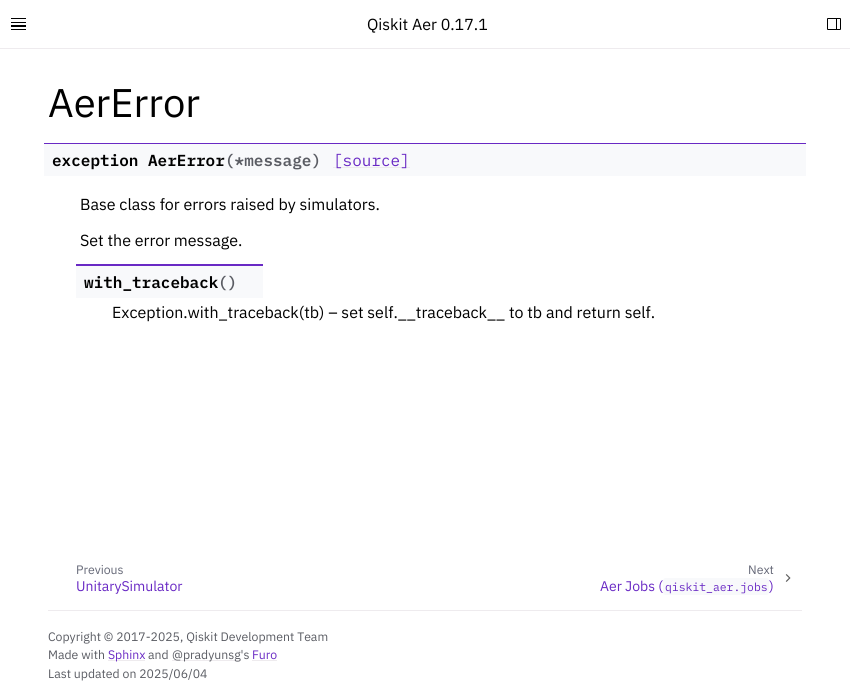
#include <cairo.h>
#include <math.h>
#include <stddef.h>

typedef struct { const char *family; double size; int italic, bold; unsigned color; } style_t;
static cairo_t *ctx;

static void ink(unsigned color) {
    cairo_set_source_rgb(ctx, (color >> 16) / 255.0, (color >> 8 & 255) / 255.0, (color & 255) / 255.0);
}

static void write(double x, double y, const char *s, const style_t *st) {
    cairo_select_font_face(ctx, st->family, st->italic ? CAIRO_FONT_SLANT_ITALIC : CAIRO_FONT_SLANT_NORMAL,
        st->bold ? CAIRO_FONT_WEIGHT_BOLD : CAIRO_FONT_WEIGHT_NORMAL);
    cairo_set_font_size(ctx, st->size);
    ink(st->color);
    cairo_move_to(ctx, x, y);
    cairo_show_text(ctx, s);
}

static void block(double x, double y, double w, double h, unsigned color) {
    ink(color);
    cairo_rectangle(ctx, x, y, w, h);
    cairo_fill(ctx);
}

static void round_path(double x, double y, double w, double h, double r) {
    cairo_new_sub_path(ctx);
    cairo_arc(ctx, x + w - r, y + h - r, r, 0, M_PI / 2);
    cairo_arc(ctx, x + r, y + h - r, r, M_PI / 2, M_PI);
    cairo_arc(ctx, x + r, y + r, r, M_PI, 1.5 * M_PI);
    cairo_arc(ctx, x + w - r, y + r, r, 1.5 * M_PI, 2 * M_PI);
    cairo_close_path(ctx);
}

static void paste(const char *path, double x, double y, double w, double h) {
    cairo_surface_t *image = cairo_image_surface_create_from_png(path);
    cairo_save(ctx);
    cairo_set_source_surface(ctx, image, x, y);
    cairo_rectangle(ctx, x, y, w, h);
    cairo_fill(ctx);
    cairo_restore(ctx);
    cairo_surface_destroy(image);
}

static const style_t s1 = {"IBM Plex Sans", 16, 0, 0, 0x000000};
static const style_t s2 = {"IBM Plex Sans", 40, 0, 0, 0x000000};
static const style_t s3 = {"IBM Plex Mono SemiBold", 16, 0, 0, 0x000000};
static const style_t s4 = {"IBM Plex Mono SemiBold", 16, 0, 0, 0x5a5c63};
static const style_t s5 = {"IBM Plex Mono", 16, 0, 0, 0x6929c4};
static const style_t s6 = {"IBM Plex Sans", 12.25, 0, 0, 0x646776};
static const style_t s7 = {"IBM Plex Sans", 14, 0, 0, 0x6929c4};
static const style_t s8 = {"IBM Plex Mono", 11.4, 0, 0, 0x6929c4};
static const style_t s9 = {"IBM Plex Sans", 12.25, 0, 0, 0x5a5c63};
static const style_t s10 = {"IBM Plex Sans", 12.25, 0, 0, 0x6929c4};

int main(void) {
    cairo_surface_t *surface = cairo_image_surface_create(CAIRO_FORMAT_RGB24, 850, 698);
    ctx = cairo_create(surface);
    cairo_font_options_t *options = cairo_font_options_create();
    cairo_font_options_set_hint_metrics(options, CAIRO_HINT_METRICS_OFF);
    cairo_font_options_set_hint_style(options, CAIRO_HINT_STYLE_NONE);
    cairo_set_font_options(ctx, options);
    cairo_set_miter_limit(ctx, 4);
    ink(0xffffff);
    cairo_paint(ctx);
    block(0, 48, 850, 1, 0xeeebee);
    paste("pic1.png", 11, 18, 15, 12);
    write(367, 30, "Qiskit Aer 0.17.1", &s1);
    paste("pic2.png", 827, 18, 14, 12);
    write(48, 117, "AerError", &s2);
    block(44, 144, 762, 32, 0xf8f9fb);
    block(44, 143, 762, 1, 0x6929c4);
    write(52, 166, "exception AerError", &s3);
    write(225, 166, "(*message)", &s4);
    block(333, 167, 77, 1, 0xeeebee);
    write(333, 166, "[source]", &s5);
    write(80, 210, "Base class for errors raised by simulators.", &s1);
    write(80, 246, "Set the error message.", &s1);
    block(76, 266, 187, 32, 0xf8f9fb);
    block(76, 264, 187, 2, 0x6929c4);
    write(84, 288, "with_traceback", &s3);
    write(218, 288, "()", &s4);
    write(112, 318, "Exception.with_traceback(tb) – set self.__traceback__ to tb and return self.", &s1);
    write(76, 574, "Previous", &s6);
    write(76, 591, "UnitarySimulator", &s7);
    write(748, 574, "Next", &s6);
    write(600, 591, "Aer Jobs (", &s7);
    ink(0xf8f9fb);
    round_path(663, 578, 106, 17, 2.5);
    cairo_fill(ctx);
    write(665, 591, "qiskit_aer.jobs", &s8);
    write(769, 591, ")", &s7);
    paste("pic3.png", 785, 574, 6, 8);
    block(48, 610, 754, 1, 0xeeebee);
    write(48, 641, "Copyright © 2017-2025, Qiskit Development Team", &s9);
    write(48, 659, "Made with", &s9);
    block(108, 660, 37, 1, 0xeeebee);
    write(108, 659, "Sphinx", &s10);
    write(148, 659, "and", &s9);
    block(172, 660, 68, 1, 0xeeebee);
    write(172, 659, "@pradyunsg's", &s9);
    write(252, 659, "Furo", &s10);
    block(252, 660, 25, 1, 0xeeebee);
    write(48, 678, "Last updated on 2025/06/04", &s9);
    cairo_surface_write_to_png(surface, "screenshot.png");
    cairo_font_options_destroy(options);
    cairo_destroy(ctx);
    cairo_surface_destroy(surface);
    return 0;
}
